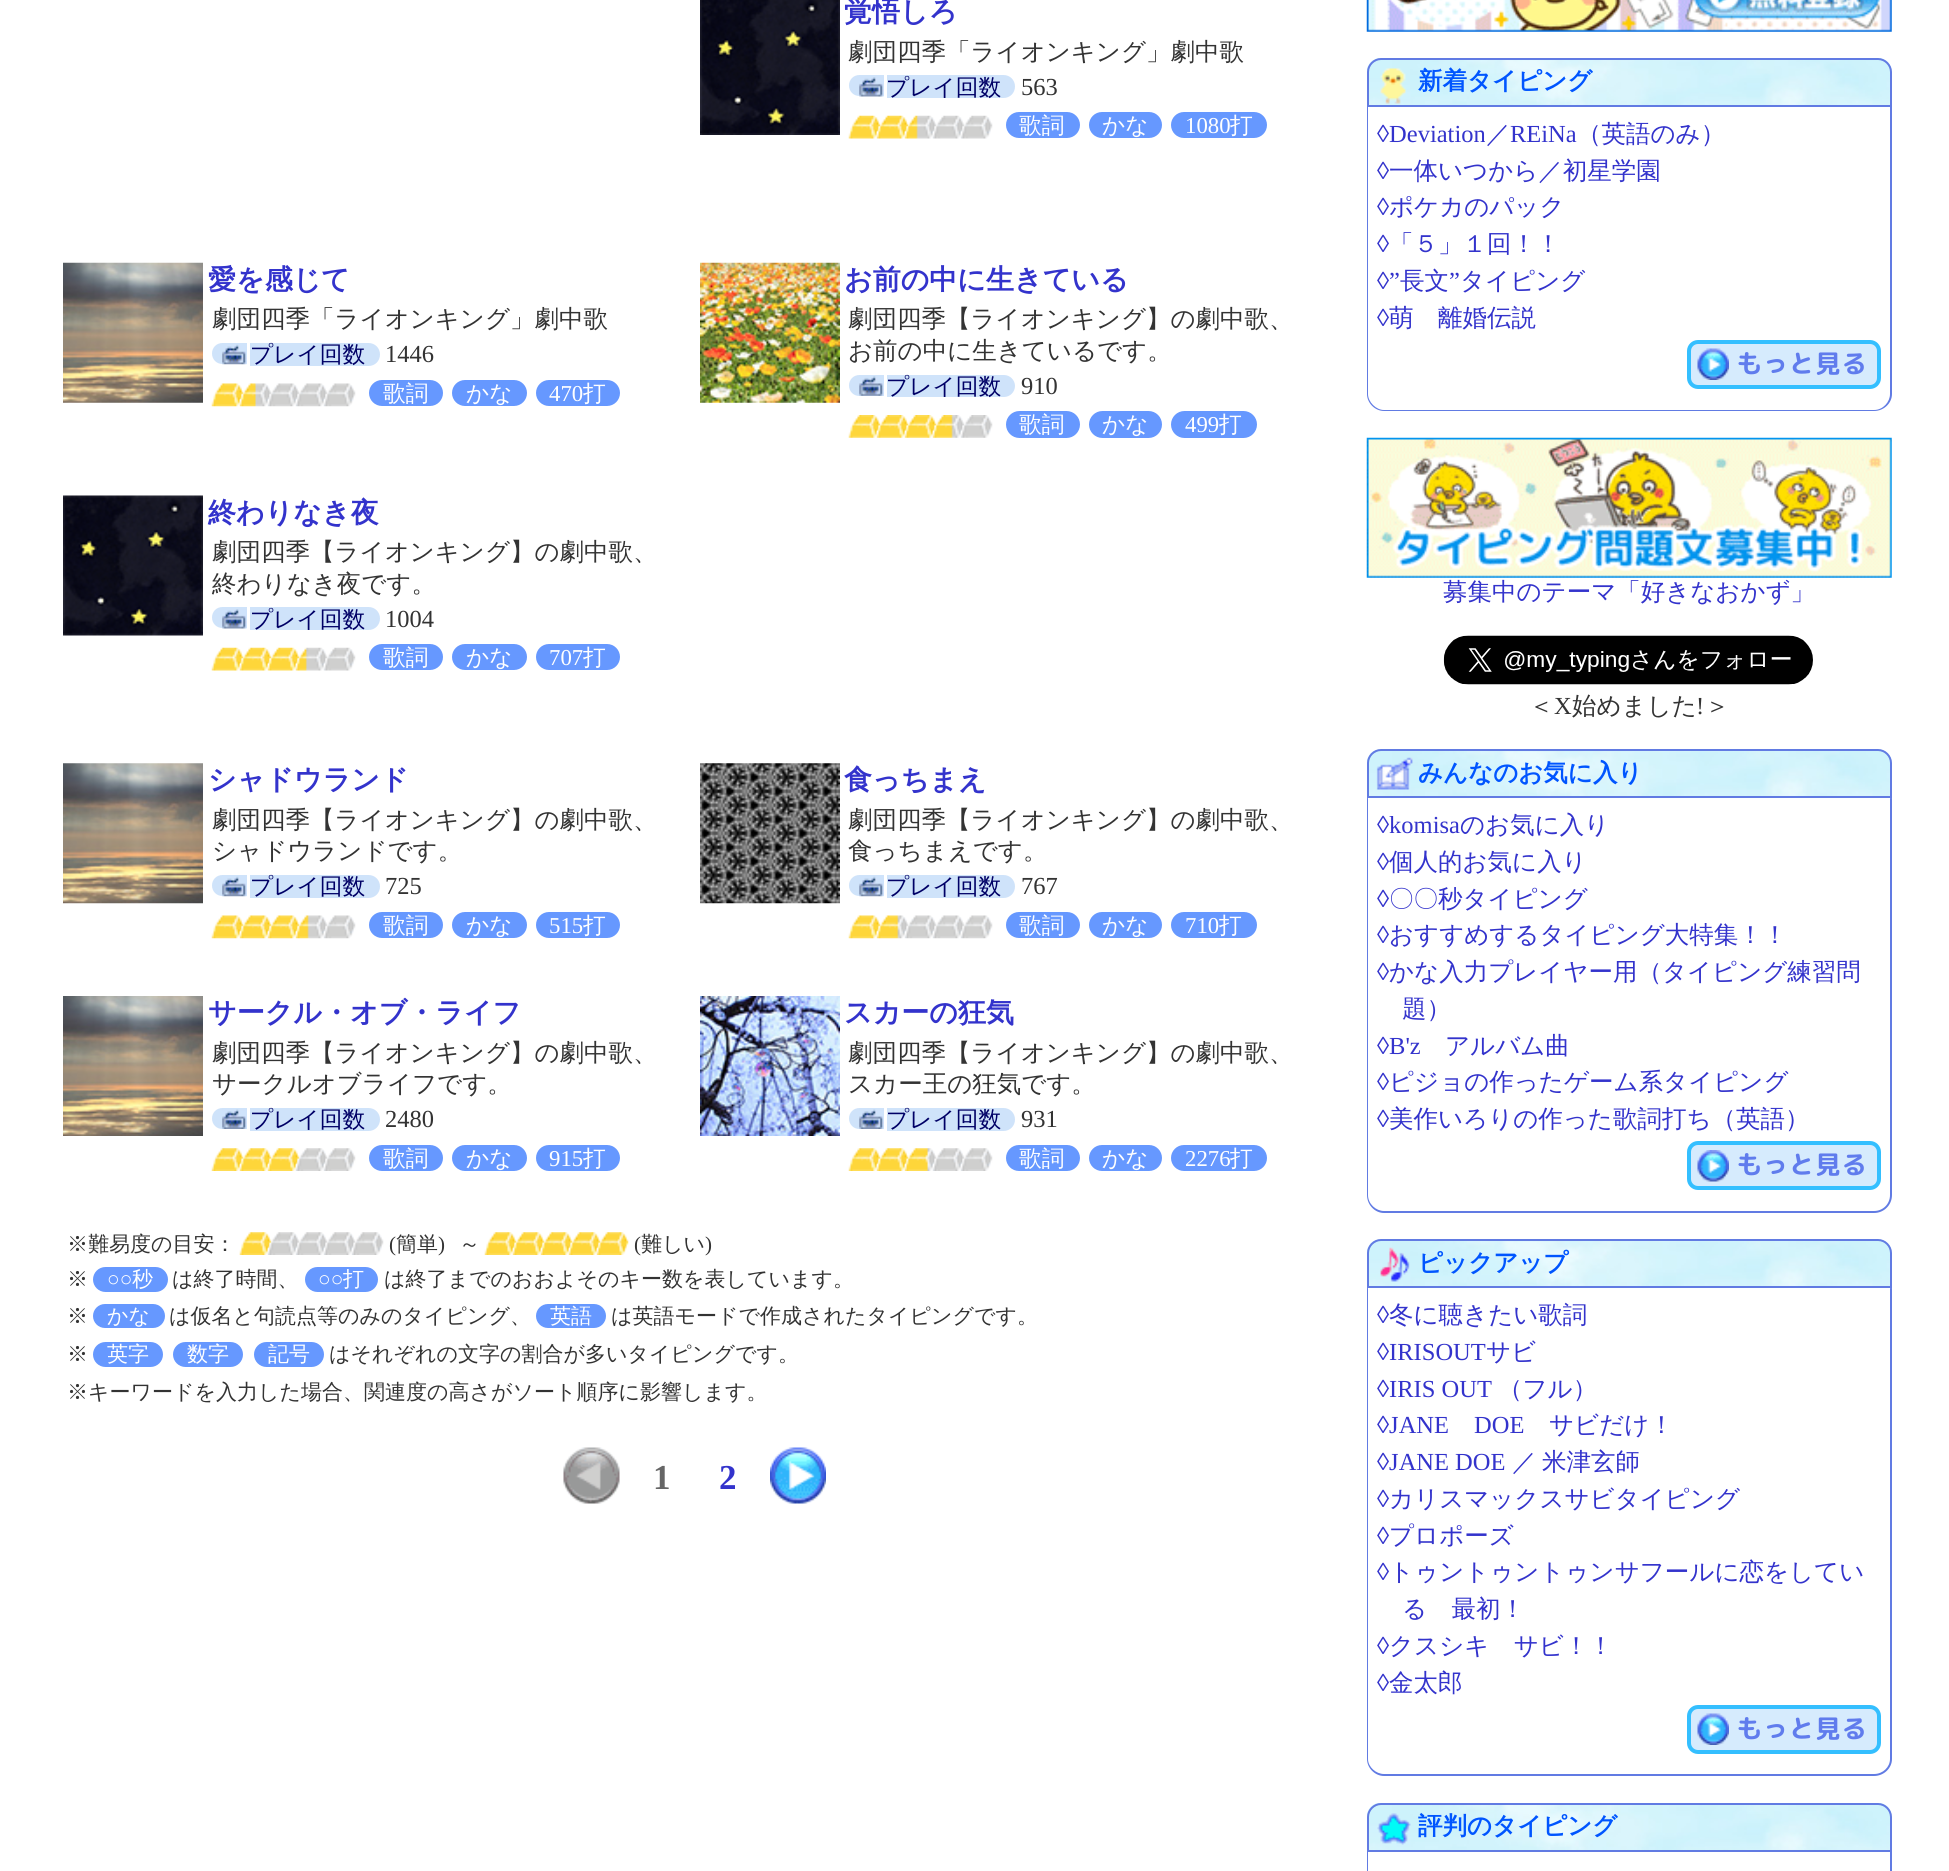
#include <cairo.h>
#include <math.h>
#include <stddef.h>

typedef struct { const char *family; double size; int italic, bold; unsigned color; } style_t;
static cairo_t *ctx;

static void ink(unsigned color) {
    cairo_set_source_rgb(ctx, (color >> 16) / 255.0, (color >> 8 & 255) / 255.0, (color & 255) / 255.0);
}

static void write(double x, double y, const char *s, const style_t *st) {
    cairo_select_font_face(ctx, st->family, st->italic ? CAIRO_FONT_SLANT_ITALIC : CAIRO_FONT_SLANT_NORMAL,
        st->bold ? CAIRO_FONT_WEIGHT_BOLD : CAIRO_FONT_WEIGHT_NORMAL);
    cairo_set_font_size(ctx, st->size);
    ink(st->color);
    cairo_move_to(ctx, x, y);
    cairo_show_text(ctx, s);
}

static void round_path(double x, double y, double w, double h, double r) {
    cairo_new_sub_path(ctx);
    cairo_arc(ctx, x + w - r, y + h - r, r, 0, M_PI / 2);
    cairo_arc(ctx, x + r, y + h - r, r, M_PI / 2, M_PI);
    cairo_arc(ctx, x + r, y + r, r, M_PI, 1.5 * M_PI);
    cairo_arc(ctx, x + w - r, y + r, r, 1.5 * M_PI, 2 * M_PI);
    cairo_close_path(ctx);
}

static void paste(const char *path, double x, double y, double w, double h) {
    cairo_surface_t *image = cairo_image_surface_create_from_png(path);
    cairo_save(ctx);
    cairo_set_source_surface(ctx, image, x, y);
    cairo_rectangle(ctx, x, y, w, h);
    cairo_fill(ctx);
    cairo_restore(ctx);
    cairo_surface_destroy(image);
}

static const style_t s1 = {"WenQuanYi Zen Hei", 28, 0, 1, 0x3333cc};
static const style_t s2 = {"WenQuanYi Zen Hei Medium", 24.5, 0, 0, 0x333333};
static const style_t s3 = {"WenQuanYi Zen Hei Medium", 22.75, 0, 0, 0x000066};
static const style_t s4 = {"Liberation Serif", 24.5, 0, 0, 0x333333};
static const style_t s5 = {"WenQuanYi Zen Hei Medium", 22.75, 0, 0, 0xffffff};
static const style_t s6 = {"Liberation Serif", 22.75, 0, 0, 0xffffff};
static const style_t s7 = {"WenQuanYi Zen Hei Medium", 21, 0, 0, 0x333333};
static const style_t s8 = {"Liberation Serif", 21, 0, 0, 0x333333};
static const style_t s9 = {"Liberation Serif", 21, 0, 0, 0xffffff};
static const style_t s10 = {"WenQuanYi Zen Hei Medium", 21, 0, 0, 0xffffff};
static const style_t s11 = {"Liberation Serif", 35, 0, 1, 0x666666};
static const style_t s12 = {"Liberation Serif", 35, 0, 1, 0x3333cc};
static const style_t s13 = {"WenQuanYi Zen Hei", 24.5, 0, 1, 0x0055ff};
static const style_t s14 = {"Liberation Serif", 24.5, 0, 0, 0x3333cc};
static const style_t s15 = {"WenQuanYi Zen Hei Medium", 24.5, 0, 0, 0x3333cc};
static const style_t s16 = {"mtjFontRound", 26.25, 0, 1, 0x607ced};

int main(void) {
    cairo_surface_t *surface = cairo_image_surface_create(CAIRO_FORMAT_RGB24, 1949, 1871);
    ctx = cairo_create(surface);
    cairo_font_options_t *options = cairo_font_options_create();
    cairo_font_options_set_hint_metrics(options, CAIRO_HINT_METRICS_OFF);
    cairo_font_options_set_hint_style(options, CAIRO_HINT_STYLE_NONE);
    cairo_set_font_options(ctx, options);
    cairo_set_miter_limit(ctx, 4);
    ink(0xffffff);
    cairo_paint(ctx);
    paste("pic1.png", 700, 0, 140, 135);
    write(844, 21, "覚悟しろ", &s1);
    write(848, 60, "劇団四季「ライオンキング」劇中歌", &s2);
    ink(0xcfe3fa);
    cairo_new_path(ctx);
    cairo_move_to(ctx, 859.5, 75);
    cairo_line_to(ctx, 884, 75);
    cairo_line_to(ctx, 884, 96);
    cairo_line_to(ctx, 859.5, 96);
    cairo_curve_to(ctx, 853.5, 96, 849, 91.5, 849, 85.5);
    cairo_curve_to(ctx, 849, 79.5, 853.5, 75, 859.5, 75);
    cairo_close_path(ctx);
    cairo_fill(ctx);
    cairo_new_path(ctx);
    cairo_move_to(ctx, 887, 75);
    cairo_line_to(ctx, 1003.5, 75);
    cairo_curve_to(ctx, 1010, 75, 1015, 80, 1015, 86.5);
    cairo_curve_to(ctx, 1015, 93, 1010, 98, 1003.5, 98);
    cairo_line_to(ctx, 887, 98);
    cairo_close_path(ctx);
    cairo_fill(ctx);
    paste("pic2.png", 859, 77, 25, 20);
    write(886, 95, "プレイ回数", &s3);
    write(1021, 95, "563", &s4);
    paste("pic3.png", 848, 115, 33, 24);
    paste("pic4.png", 876, 115, 33, 24);
    paste("pic5.png", 904, 115, 33, 24);
    paste("pic6.png", 932, 115, 33, 24);
    paste("pic7.png", 960, 115, 33, 24);
    ink(0x6698ff);
    round_path(1006, 112, 74, 26, 13);
    cairo_fill(ctx);
    write(1019, 133, "歌詞", &s5);
    ink(0x6698ff);
    round_path(1089, 112, 73, 26, 13);
    cairo_fill(ctx);
    write(1102, 133, "かな", &s5);
    ink(0x6698ff);
    round_path(1171, 112, 96, 26, 13);
    cairo_fill(ctx);
    write(1185, 133, "1080", &s6);
    write(1230, 133, "打", &s5);
    paste("pic8.png", 63, 262, 140, 141);
    write(208, 289, "愛を感じて", &s1);
    write(212, 327, "劇団四季「ライオンキング」劇中歌", &s2);
    ink(0xcfe3fa);
    cairo_new_path(ctx);
    cairo_move_to(ctx, 222.5, 343);
    cairo_line_to(ctx, 247, 343);
    cairo_line_to(ctx, 247, 364);
    cairo_line_to(ctx, 222.5, 364);
    cairo_curve_to(ctx, 216.5, 364, 212, 359.5, 212, 353.5);
    cairo_curve_to(ctx, 212, 347.5, 216.5, 343, 222.5, 343);
    cairo_close_path(ctx);
    cairo_fill(ctx);
    cairo_new_path(ctx);
    cairo_move_to(ctx, 250, 343);
    cairo_line_to(ctx, 368.5, 343);
    cairo_curve_to(ctx, 375, 343, 380, 348, 380, 354.5);
    cairo_curve_to(ctx, 380, 361, 375, 366, 368.5, 366);
    cairo_line_to(ctx, 250, 366);
    cairo_close_path(ctx);
    cairo_fill(ctx);
    paste("pic9.png", 222, 344, 25, 21);
    write(250, 362, "プレイ回数", &s3);
    write(385, 362, "1446", &s4);
    paste("pic10.png", 211, 383, 33, 24);
    paste("pic11.png", 239, 383, 33, 24);
    paste("pic12.png", 267, 383, 33, 24);
    paste("pic12.png", 295, 383, 33, 24);
    paste("pic12.png", 323, 383, 33, 24);
    ink(0x6698ff);
    round_path(369, 380, 74, 26, 13);
    cairo_fill(ctx);
    write(383, 401, "歌詞", &s5);
    ink(0x6698ff);
    round_path(452, 380, 75, 26, 13);
    cairo_fill(ctx);
    write(466, 401, "かな", &s5);
    ink(0x6698ff);
    round_path(536, 380, 84, 26, 13);
    cairo_fill(ctx);
    write(549, 401, "470", &s6);
    write(583, 401, "打", &s5);
    paste("pic13.png", 700, 262, 140, 141);
    write(844, 289, "お前の中に生きている", &s1);
    write(848, 327, "劇団四季【ライオンキング】の劇中歌、", &s2);
    write(848, 359, "お前の中に生きているです。", &s2);
    ink(0xcfe3fa);
    cairo_new_path(ctx);
    cairo_move_to(ctx, 859.5, 375);
    cairo_line_to(ctx, 884, 375);
    cairo_line_to(ctx, 884, 396);
    cairo_line_to(ctx, 859.5, 396);
    cairo_curve_to(ctx, 853.5, 396, 849, 391.5, 849, 385.5);
    cairo_curve_to(ctx, 849, 379.5, 853.5, 375, 859.5, 375);
    cairo_close_path(ctx);
    cairo_fill(ctx);
    cairo_new_path(ctx);
    cairo_move_to(ctx, 887, 375);
    cairo_line_to(ctx, 1004, 375);
    cairo_curve_to(ctx, 1010, 375, 1015, 380, 1015, 386);
    cairo_curve_to(ctx, 1015, 392, 1010, 397, 1004, 397);
    cairo_line_to(ctx, 887, 397);
    cairo_close_path(ctx);
    cairo_fill(ctx);
    paste("pic14.png", 859, 376, 25, 20);
    write(886, 394, "プレイ回数", &s3);
    write(1021, 394, "910", &s4);
    paste("pic15.png", 848, 415, 33, 23);
    paste("pic16.png", 876, 415, 33, 23);
    paste("pic17.png", 904, 415, 33, 23);
    paste("pic18.png", 932, 415, 33, 23);
    paste("pic19.png", 960, 415, 33, 23);
    ink(0x6698ff);
    round_path(1006, 411, 74, 27, 13.5);
    cairo_fill(ctx);
    write(1019, 432, "歌詞", &s5);
    ink(0x6698ff);
    round_path(1089, 411, 73, 27, 13.5);
    cairo_fill(ctx);
    write(1102, 432, "かな", &s5);
    ink(0x6698ff);
    round_path(1171, 411, 86, 27, 13.5);
    cairo_fill(ctx);
    write(1185, 432, "499", &s6);
    write(1219, 432, "打", &s5);
    paste("pic20.png", 63, 495, 140, 141);
    write(208, 522, "終わりなき夜", &s1);
    write(212, 560, "劇団四季【ライオンキング】の劇中歌、", &s2);
    write(212, 592, "終わりなき夜です。", &s2);
    ink(0xcfe3fa);
    cairo_new_path(ctx);
    cairo_move_to(ctx, 222.5, 607);
    cairo_line_to(ctx, 247, 607);
    cairo_line_to(ctx, 247, 628);
    cairo_line_to(ctx, 222.5, 628);
    cairo_curve_to(ctx, 216.5, 628, 212, 623.5, 212, 617.5);
    cairo_curve_to(ctx, 212, 611.5, 216.5, 607, 222.5, 607);
    cairo_close_path(ctx);
    cairo_fill(ctx);
    cairo_new_path(ctx);
    cairo_move_to(ctx, 250, 607);
    cairo_line_to(ctx, 368.5, 607);
    cairo_curve_to(ctx, 375, 607, 380, 612, 380, 618.5);
    cairo_curve_to(ctx, 380, 625, 375, 630, 368.5, 630);
    cairo_line_to(ctx, 250, 630);
    cairo_close_path(ctx);
    cairo_fill(ctx);
    paste("pic2.png", 222, 609, 25, 20);
    write(250, 627, "プレイ回数", &s3);
    write(385, 627, "1004", &s4);
    paste("pic21.png", 211, 647, 33, 24);
    paste("pic22.png", 239, 647, 33, 24);
    paste("pic23.png", 267, 647, 33, 24);
    paste("pic24.png", 295, 647, 33, 24);
    paste("pic25.png", 323, 647, 33, 24);
    ink(0x6698ff);
    round_path(369, 644, 74, 26, 13);
    cairo_fill(ctx);
    write(383, 665, "歌詞", &s5);
    ink(0x6698ff);
    round_path(452, 644, 75, 26, 13);
    cairo_fill(ctx);
    write(466, 665, "かな", &s5);
    ink(0x6698ff);
    round_path(536, 644, 84, 26, 13);
    cairo_fill(ctx);
    write(549, 665, "707", &s6);
    write(583, 665, "打", &s5);
    paste("pic26.png", 63, 763, 140, 141);
    write(208, 789, "シャドウランド", &s1);
    write(212, 828, "劇団四季【ライオンキング】の劇中歌、", &s2);
    write(212, 859, "シャドウランドです。", &s2);
    ink(0xcfe3fa);
    cairo_new_path(ctx);
    cairo_move_to(ctx, 222.5, 875);
    cairo_line_to(ctx, 247, 875);
    cairo_line_to(ctx, 247, 896);
    cairo_line_to(ctx, 222.5, 896);
    cairo_curve_to(ctx, 216.5, 896, 212, 891.5, 212, 885.5);
    cairo_curve_to(ctx, 212, 879.5, 216.5, 875, 222.5, 875);
    cairo_close_path(ctx);
    cairo_fill(ctx);
    cairo_new_path(ctx);
    cairo_move_to(ctx, 250, 875);
    cairo_line_to(ctx, 368.5, 875);
    cairo_curve_to(ctx, 375, 875, 380, 880, 380, 886.5);
    cairo_curve_to(ctx, 380, 893, 375, 898, 368.5, 898);
    cairo_line_to(ctx, 250, 898);
    cairo_close_path(ctx);
    cairo_fill(ctx);
    paste("pic9.png", 222, 876, 25, 21);
    write(250, 894, "プレイ回数", &s3);
    write(385, 894, "725", &s4);
    paste("pic10.png", 211, 915, 33, 24);
    paste("pic27.png", 239, 915, 33, 24);
    paste("pic28.png", 267, 915, 33, 24);
    paste("pic29.png", 295, 915, 33, 24);
    paste("pic12.png", 323, 915, 33, 24);
    ink(0x6698ff);
    round_path(369, 912, 74, 26, 13);
    cairo_fill(ctx);
    write(383, 933, "歌詞", &s5);
    ink(0x6698ff);
    round_path(452, 912, 75, 26, 13);
    cairo_fill(ctx);
    write(466, 933, "かな", &s5);
    ink(0x6698ff);
    round_path(536, 912, 84, 26, 13);
    cairo_fill(ctx);
    write(549, 933, "515", &s6);
    write(583, 933, "打", &s5);
    paste("pic30.png", 700, 763, 140, 141);
    write(844, 789, "食っちまえ", &s1);
    write(848, 828, "劇団四季【ライオンキング】の劇中歌、", &s2);
    write(848, 859, "食っちまえです。", &s2);
    ink(0xcfe3fa);
    cairo_new_path(ctx);
    cairo_move_to(ctx, 859.5, 875);
    cairo_line_to(ctx, 884, 875);
    cairo_line_to(ctx, 884, 896);
    cairo_line_to(ctx, 859.5, 896);
    cairo_curve_to(ctx, 853.5, 896, 849, 891.5, 849, 885.5);
    cairo_curve_to(ctx, 849, 879.5, 853.5, 875, 859.5, 875);
    cairo_close_path(ctx);
    cairo_fill(ctx);
    cairo_new_path(ctx);
    cairo_move_to(ctx, 887, 875);
    cairo_line_to(ctx, 1003.5, 875);
    cairo_curve_to(ctx, 1010, 875, 1015, 880, 1015, 886.5);
    cairo_curve_to(ctx, 1015, 893, 1010, 898, 1003.5, 898);
    cairo_line_to(ctx, 887, 898);
    cairo_close_path(ctx);
    cairo_fill(ctx);
    paste("pic9.png", 859, 876, 25, 21);
    write(886, 894, "プレイ回数", &s3);
    write(1021, 894, "767", &s4);
    paste("pic31.png", 848, 915, 33, 24);
    paste("pic32.png", 876, 915, 33, 24);
    paste("pic33.png", 904, 915, 33, 24);
    paste("pic34.png", 932, 915, 33, 24);
    paste("pic12.png", 960, 915, 33, 24);
    ink(0x6698ff);
    round_path(1006, 912, 74, 26, 13);
    cairo_fill(ctx);
    write(1019, 933, "歌詞", &s5);
    ink(0x6698ff);
    round_path(1089, 912, 73, 26, 13);
    cairo_fill(ctx);
    write(1102, 933, "かな", &s5);
    ink(0x6698ff);
    round_path(1171, 912, 86, 26, 13);
    cairo_fill(ctx);
    write(1185, 933, "710", &s6);
    write(1219, 933, "打", &s5);
    paste("pic35.png", 63, 996, 140, 140);
    write(208, 1022, "サークル・オブ・ライフ", &s1);
    write(212, 1061, "劇団四季【ライオンキング】の劇中歌、", &s2);
    write(212, 1092, "サークルオブライフです。", &s2);
    ink(0xcfe3fa);
    cairo_new_path(ctx);
    cairo_move_to(ctx, 222.5, 1108);
    cairo_line_to(ctx, 247, 1108);
    cairo_line_to(ctx, 247, 1129);
    cairo_line_to(ctx, 222.5, 1129);
    cairo_curve_to(ctx, 216.5, 1129, 212, 1124.5, 212, 1118.5);
    cairo_curve_to(ctx, 212, 1112.5, 216.5, 1108, 222.5, 1108);
    cairo_close_path(ctx);
    cairo_fill(ctx);
    cairo_new_path(ctx);
    cairo_move_to(ctx, 250, 1108);
    cairo_line_to(ctx, 368.5, 1108);
    cairo_curve_to(ctx, 375, 1108, 380, 1113, 380, 1119.5);
    cairo_curve_to(ctx, 380, 1126, 375, 1131, 368.5, 1131);
    cairo_line_to(ctx, 250, 1131);
    cairo_close_path(ctx);
    cairo_fill(ctx);
    paste("pic36.png", 222, 1109, 25, 20);
    write(250, 1127, "プレイ回数", &s3);
    write(385, 1127, "2480", &s4);
    paste("pic37.png", 211, 1148, 33, 23);
    paste("pic38.png", 239, 1148, 33, 23);
    paste("pic39.png", 267, 1148, 33, 23);
    paste("pic40.png", 295, 1148, 33, 23);
    paste("pic41.png", 323, 1148, 33, 23);
    ink(0x6698ff);
    round_path(369, 1145, 74, 26, 13);
    cairo_fill(ctx);
    write(383, 1166, "歌詞", &s5);
    ink(0x6698ff);
    round_path(452, 1145, 75, 26, 13);
    cairo_fill(ctx);
    write(466, 1166, "かな", &s5);
    ink(0x6698ff);
    round_path(536, 1145, 84, 26, 13);
    cairo_fill(ctx);
    write(549, 1166, "915", &s6);
    write(583, 1166, "打", &s5);
    paste("pic42.png", 700, 996, 140, 140);
    write(844, 1022, "スカーの狂気", &s1);
    write(848, 1061, "劇団四季【ライオンキング】の劇中歌、", &s2);
    write(848, 1092, "スカー王の狂気です。", &s2);
    ink(0xcfe3fa);
    cairo_new_path(ctx);
    cairo_move_to(ctx, 859.5, 1108);
    cairo_line_to(ctx, 884, 1108);
    cairo_line_to(ctx, 884, 1129);
    cairo_line_to(ctx, 859.5, 1129);
    cairo_curve_to(ctx, 853.5, 1129, 849, 1124.5, 849, 1118.5);
    cairo_curve_to(ctx, 849, 1112.5, 853.5, 1108, 859.5, 1108);
    cairo_close_path(ctx);
    cairo_fill(ctx);
    cairo_new_path(ctx);
    cairo_move_to(ctx, 887, 1108);
    cairo_line_to(ctx, 1003.5, 1108);
    cairo_curve_to(ctx, 1010, 1108, 1015, 1113, 1015, 1119.5);
    cairo_curve_to(ctx, 1015, 1126, 1010, 1131, 1003.5, 1131);
    cairo_line_to(ctx, 887, 1131);
    cairo_close_path(ctx);
    cairo_fill(ctx);
    paste("pic36.png", 859, 1109, 25, 20);
    write(886, 1127, "プレイ回数", &s3);
    write(1021, 1127, "931", &s4);
    paste("pic43.png", 848, 1148, 33, 23);
    paste("pic44.png", 876, 1148, 33, 23);
    paste("pic45.png", 904, 1148, 33, 23);
    paste("pic46.png", 932, 1148, 33, 23);
    paste("pic41.png", 960, 1148, 33, 23);
    ink(0x6698ff);
    round_path(1006, 1145, 74, 26, 13);
    cairo_fill(ctx);
    write(1019, 1166, "歌詞", &s5);
    ink(0x6698ff);
    round_path(1089, 1145, 73, 26, 13);
    cairo_fill(ctx);
    write(1102, 1166, "かな", &s5);
    ink(0x6698ff);
    round_path(1171, 1145, 96, 26, 13);
    cairo_fill(ctx);
    write(1185, 1166, "2276", &s6);
    write(1230, 1166, "打", &s5);
    write(67, 1251, "※難易度の目安：", &s7);
    paste("pic43.png", 239, 1232, 33, 23);
    paste("pic40.png", 267, 1232, 33, 23);
    paste("pic41.png", 295, 1232, 33, 23);
    paste("pic41.png", 323, 1232, 33, 23);
    paste("pic47.png", 351, 1232, 33, 23);
    write(389, 1251, "(", &s8);
    write(396, 1251, "簡単", &s7);
    write(438, 1251, ")", &s8);
    write(459, 1251, "～", &s7);
    paste("pic43.png", 484, 1232, 33, 23);
    paste("pic39.png", 512, 1232, 33, 23);
    paste("pic39.png", 540, 1232, 33, 23);
    paste("pic39.png", 568, 1232, 33, 23);
    paste("pic39.png", 596, 1232, 33, 23);
    write(634, 1251, "(", &s8);
    write(641, 1251, "難しい", &s7);
    write(705, 1251, ")", &s8);
    write(67, 1286, "※", &s7);
    ink(0x6698ff);
    round_path(93, 1267, 75, 25, 12.5);
    cairo_fill(ctx);
    write(107, 1286, "○○", &s9);
    write(132, 1286, "秒", &s10);
    write(172, 1286, "は終了時間、", &s7);
    ink(0x6698ff);
    round_path(305, 1267, 73, 25, 12.5);
    cairo_fill(ctx);
    write(318, 1286, "○○", &s9);
    write(343, 1286, "打", &s10);
    write(384, 1286, "は終了までのおおよそのキー数を表しています。", &s7);
    write(67, 1323, "※", &s7);
    ink(0x6698ff);
    round_path(93, 1304, 72, 24, 12);
    cairo_fill(ctx);
    write(107, 1323, "かな", &s10);
    write(169, 1323, "は仮名と句読点等のみのタイピング、", &s7);
    ink(0x6698ff);
    round_path(536, 1304, 70, 24, 12);
    cairo_fill(ctx);
    write(550, 1323, "英語", &s10);
    write(611, 1323, "は英語モードで作成されたタイピングです。", &s7);
    write(67, 1361, "※", &s7);
    ink(0x6698ff);
    round_path(93, 1342, 70, 25, 12.5);
    cairo_fill(ctx);
    write(107, 1361, "英字", &s10);
    ink(0x6698ff);
    round_path(173, 1342, 70, 25, 12.5);
    cairo_fill(ctx);
    write(187, 1361, "数字", &s10);
    ink(0x6698ff);
    round_path(254, 1342, 70, 25, 12.5);
    cairo_fill(ctx);
    write(268, 1361, "記号", &s10);
    write(329, 1361, "はそれぞれの文字の割合が多いタイピングです。", &s7);
    write(67, 1399, "※キーワードを入力した場合、関連度の高さがソート順序に影響します。", &s7);
    paste("pic48.png", 563, 1447, 57, 57);
    write(653, 1489, "1", &s11);
    write(719, 1489, "2", &s12);
    paste("pic49.png", 770, 1447, 56, 57);
    paste("pic50.png", 1366, 0, 526, 32);
    paste("pic51.png", 1367, 58, 525, 47);
    cairo_new_path(ctx);
    cairo_move_to(ctx, 1381, 59);
    cairo_line_to(ctx, 1878, 59);
    cairo_curve_to(ctx, 1885, 59, 1891, 65, 1891, 72);
    cairo_line_to(ctx, 1891, 106);
    cairo_line_to(ctx, 1368, 106);
    cairo_line_to(ctx, 1368, 72);
    cairo_curve_to(ctx, 1368, 65, 1374, 59, 1381, 59);
    cairo_close_path(ctx);
    ink(0x617be3);
    cairo_stroke(ctx);
    paste("pic52.png", 1380, 68, 26, 36);
    write(1418, 89, "新着タイピング", &s13);
    ink(0x617be3);
    cairo_set_fill_rule(ctx, CAIRO_FILL_RULE_EVEN_ODD);
    cairo_new_path(ctx);
    cairo_move_to(ctx, 1367, 107);
    cairo_line_to(ctx, 1892, 107);
    cairo_line_to(ctx, 1892, 394);
    cairo_curve_to(ctx, 1892, 403, 1884, 411, 1874, 411);
    cairo_line_to(ctx, 1384, 411);
    cairo_curve_to(ctx, 1375, 411, 1367, 403, 1367, 394);
    cairo_close_path(ctx);
    cairo_move_to(ctx, 1368, 107);
    cairo_line_to(ctx, 1890, 107);
    cairo_line_to(ctx, 1890, 394);
    cairo_curve_to(ctx, 1890, 402, 1883, 410, 1874, 410);
    cairo_line_to(ctx, 1384, 410);
    cairo_curve_to(ctx, 1376, 410, 1368, 402, 1368, 394);
    cairo_close_path(ctx);
    cairo_fill(ctx);
    write(1377, 142, "◊Deviation", &s14);
    write(1486, 142, "／", &s15);
    write(1510, 142, "REiNa", &s14);
    write(1577, 142, "（英語のみ）", &s15);
    write(1377, 179, "◊", &s14);
    write(1389, 179, "一体いつから／初星学園", &s15);
    write(1377, 215, "◊", &s14);
    write(1389, 215, "ポケカのパック", &s15);
    write(1377, 252, "◊", &s14);
    write(1389, 252, "「５」１回！！", &s15);
    write(1377, 289, "◊”", &s14);
    write(1400, 289, "長文", &s15);
    write(1449, 289, "”", &s14);
    write(1460, 289, "タイピング", &s15);
    write(1377, 326, "◊", &s14);
    write(1389, 326, "萌　離婚伝説", &s15);
    ink(0xd6ebfd);
    round_path(1689, 342, 190, 45, 9);
    cairo_fill_preserve(ctx);
    ink(0x34bfff);
    cairo_set_line_width(ctx, 4);
    cairo_stroke(ctx);
    paste("pic53.png", 1697, 348, 32, 32);
    write(1736, 373, "もっと見る", &s16);
    paste("pic54.png", 1366, 437, 526, 141);
    write(1443, 600, "募集中のテーマ「好きなおかず」", &s15);
    paste("pic55.png", 1443, 635, 370, 50);
    write(1529, 714, "＜", &s2);
    write(1554, 714, "X", &s4);
    write(1572, 714, "始めました", &s2);
    write(1696, 714, "!", &s4);
    write(1705, 714, "＞", &s2);
    ink(0x617be3);
    cairo_new_path(ctx);
    cairo_move_to(ctx, 1367, 798);
    cairo_line_to(ctx, 1892, 798);
    cairo_line_to(ctx, 1892, 1195);
    cairo_curve_to(ctx, 1892, 1205, 1884, 1213, 1874, 1213);
    cairo_line_to(ctx, 1384, 1213);
    cairo_curve_to(ctx, 1375, 1213, 1367, 1205, 1367, 1195);
    cairo_close_path(ctx);
    cairo_move_to(ctx, 1368, 798);
    cairo_line_to(ctx, 1890, 798);
    cairo_line_to(ctx, 1890, 1195);
    cairo_curve_to(ctx, 1890, 1204, 1883, 1211, 1874, 1211);
    cairo_line_to(ctx, 1384, 1211);
    cairo_curve_to(ctx, 1376, 1211, 1368, 1204, 1368, 1195);
    cairo_close_path(ctx);
    cairo_fill(ctx);
    paste("pic56.png", 1367, 749, 525, 50);
    cairo_new_path(ctx);
    cairo_move_to(ctx, 1381, 750);
    cairo_line_to(ctx, 1878, 750);
    cairo_curve_to(ctx, 1885, 750, 1891, 756, 1891, 763);
    cairo_line_to(ctx, 1891, 797);
    cairo_line_to(ctx, 1368, 797);
    cairo_line_to(ctx, 1368, 763);
    cairo_curve_to(ctx, 1368, 756, 1374, 750, 1381, 750);
    cairo_close_path(ctx);
    cairo_set_line_width(ctx, 2);
    cairo_stroke(ctx);
    paste("pic57.png", 1376, 757, 37, 33);
    write(1418, 781, "みんなのお気に入り", &s13);
    write(1377, 833, "◊komisa", &s14);
    write(1460, 833, "のお気に入り", &s15);
    write(1377, 870, "◊", &s14);
    write(1389, 870, "個人的お気に入り", &s15);
    write(1377, 907, "◊", &s14);
    write(1389, 907, "〇〇秒タイピング", &s15);
    write(1377, 943, "◊", &s14);
    write(1389, 943, "おすすめするタイピング大特集！！", &s15);
    write(1377, 980, "◊", &s14);
    write(1389, 980, "かな入力プレイヤー用（タイピング練習問", &s15);
    write(1402, 1017, "題）", &s15);
    write(1377, 1054, "◊B'z", &s14);
    write(1445, 1054, "アルバム曲", &s15);
    write(1377, 1090, "◊", &s14);
    write(1389, 1090, "ピジョの作ったゲーム系タイピング", &s15);
    write(1377, 1127, "◊", &s14);
    write(1389, 1127, "美作いろりの作った歌詞打ち（英語）", &s15);
    ink(0xd6ebfd);
    round_path(1689, 1143, 190, 45, 9);
    cairo_fill_preserve(ctx);
    ink(0x34bfff);
    cairo_set_line_width(ctx, 4);
    cairo_stroke(ctx);
    paste("pic58.png", 1697, 1150, 32, 32);
    write(1736, 1174, "もっと見る", &s16);
    ink(0x617be3);
    cairo_new_path(ctx);
    cairo_move_to(ctx, 1367, 1288);
    cairo_line_to(ctx, 1892, 1288);
    cairo_line_to(ctx, 1892, 1759);
    cairo_curve_to(ctx, 1892, 1768, 1884, 1776, 1874, 1776);
    cairo_line_to(ctx, 1384, 1776);
    cairo_curve_to(ctx, 1375, 1776, 1367, 1768, 1367, 1759);
    cairo_close_path(ctx);
    cairo_move_to(ctx, 1368, 1288);
    cairo_line_to(ctx, 1890, 1288);
    cairo_line_to(ctx, 1890, 1759);
    cairo_curve_to(ctx, 1890, 1767, 1883, 1774, 1874, 1774);
    cairo_line_to(ctx, 1384, 1774);
    cairo_curve_to(ctx, 1376, 1774, 1368, 1767, 1368, 1759);
    cairo_close_path(ctx);
    cairo_fill(ctx);
    paste("pic56.png", 1367, 1239, 525, 50);
    cairo_new_path(ctx);
    cairo_move_to(ctx, 1381, 1240);
    cairo_line_to(ctx, 1878, 1240);
    cairo_curve_to(ctx, 1885, 1240, 1891, 1246, 1891, 1253);
    cairo_line_to(ctx, 1891, 1287);
    cairo_line_to(ctx, 1368, 1287);
    cairo_line_to(ctx, 1368, 1253);
    cairo_curve_to(ctx, 1368, 1246, 1374, 1240, 1381, 1240);
    cairo_close_path(ctx);
    cairo_set_line_width(ctx, 2);
    cairo_stroke(ctx);
    paste("pic59.png", 1380, 1247, 30, 35);
    write(1418, 1271, "ピックアップ", &s13);
    write(1377, 1323, "◊", &s14);
    write(1389, 1323, "冬に聴きたい歌詞", &s15);
    write(1377, 1360, "◊IRISOUT", &s14);
    write(1486, 1360, "サビ", &s15);
    write(1377, 1397, "◊IRIS OUT", &s14);
    write(1498, 1397, "（フル）", &s15);
    write(1377, 1433, "◊JANE", &s14);
    write(1474, 1433, "DOE", &s14);
    write(1549, 1433, "サビだけ！", &s15);
    write(1377, 1470, "◊JANE DOE", &s14);
    write(1512, 1470, "／", &s15);
    write(1542, 1470, "米津玄師", &s15);
    write(1377, 1507, "◊", &s14);
    write(1389, 1507, "カリスマックスサビタイピング", &s15);
    write(1377, 1544, "◊", &s14);
    write(1389, 1544, "プロポーズ", &s15);
    write(1377, 1580, "◊", &s14);
    write(1389, 1580, "トゥントゥントゥンサフールに恋をしてい", &s15);
    write(1402, 1617, "る　最初！", &s15);
    write(1377, 1654, "◊", &s14);
    write(1389, 1654, "クスシキ　サビ！！", &s15);
    write(1377, 1691, "◊", &s14);
    write(1389, 1691, "金太郎", &s15);
    ink(0xd6ebfd);
    round_path(1689, 1707, 190, 45, 9);
    cairo_fill_preserve(ctx);
    ink(0x34bfff);
    cairo_set_line_width(ctx, 4);
    cairo_stroke(ctx);
    paste("pic53.png", 1697, 1713, 32, 32);
    write(1736, 1738, "もっと見る", &s16);
    paste("pic60.png", 1367, 1803, 525, 47);
    cairo_new_path(ctx);
    cairo_move_to(ctx, 1381, 1804);
    cairo_line_to(ctx, 1878, 1804);
    cairo_curve_to(ctx, 1885, 1804, 1891, 1810, 1891, 1817);
    cairo_line_to(ctx, 1891, 1851);
    cairo_line_to(ctx, 1368, 1851);
    cairo_line_to(ctx, 1368, 1817);
    cairo_curve_to(ctx, 1368, 1810, 1374, 1804, 1381, 1804);
    cairo_close_path(ctx);
    ink(0x617be3);
    cairo_set_line_width(ctx, 2);
    cairo_stroke(ctx);
    paste("pic61.png", 1377, 1813, 34, 32);
    write(1418, 1834, "評判のタイピング", &s13);
    ink(0x617be3);
    cairo_new_path(ctx);
    cairo_move_to(ctx, 1367, 1852);
    cairo_line_to(ctx, 1892, 1852);
    cairo_line_to(ctx, 1892, 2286);
    cairo_curve_to(ctx, 1892, 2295, 1884, 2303, 1874, 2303);
    cairo_line_to(ctx, 1384, 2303);
    cairo_curve_to(ctx, 1375, 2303, 1367, 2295, 1367, 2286);
    cairo_close_path(ctx);
    cairo_move_to(ctx, 1368, 1852);
    cairo_line_to(ctx, 1890, 1852);
    cairo_line_to(ctx, 1890, 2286);
    cairo_curve_to(ctx, 1890, 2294, 1883, 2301, 1874, 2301);
    cairo_line_to(ctx, 1384, 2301);
    cairo_curve_to(ctx, 1376, 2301, 1368, 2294, 1368, 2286);
    cairo_close_path(ctx);
    cairo_fill(ctx);
    cairo_surface_write_to_png(surface, "screenshot.png");
    cairo_font_options_destroy(options);
    cairo_destroy(ctx);
    cairo_surface_destroy(surface);
    return 0;
}
